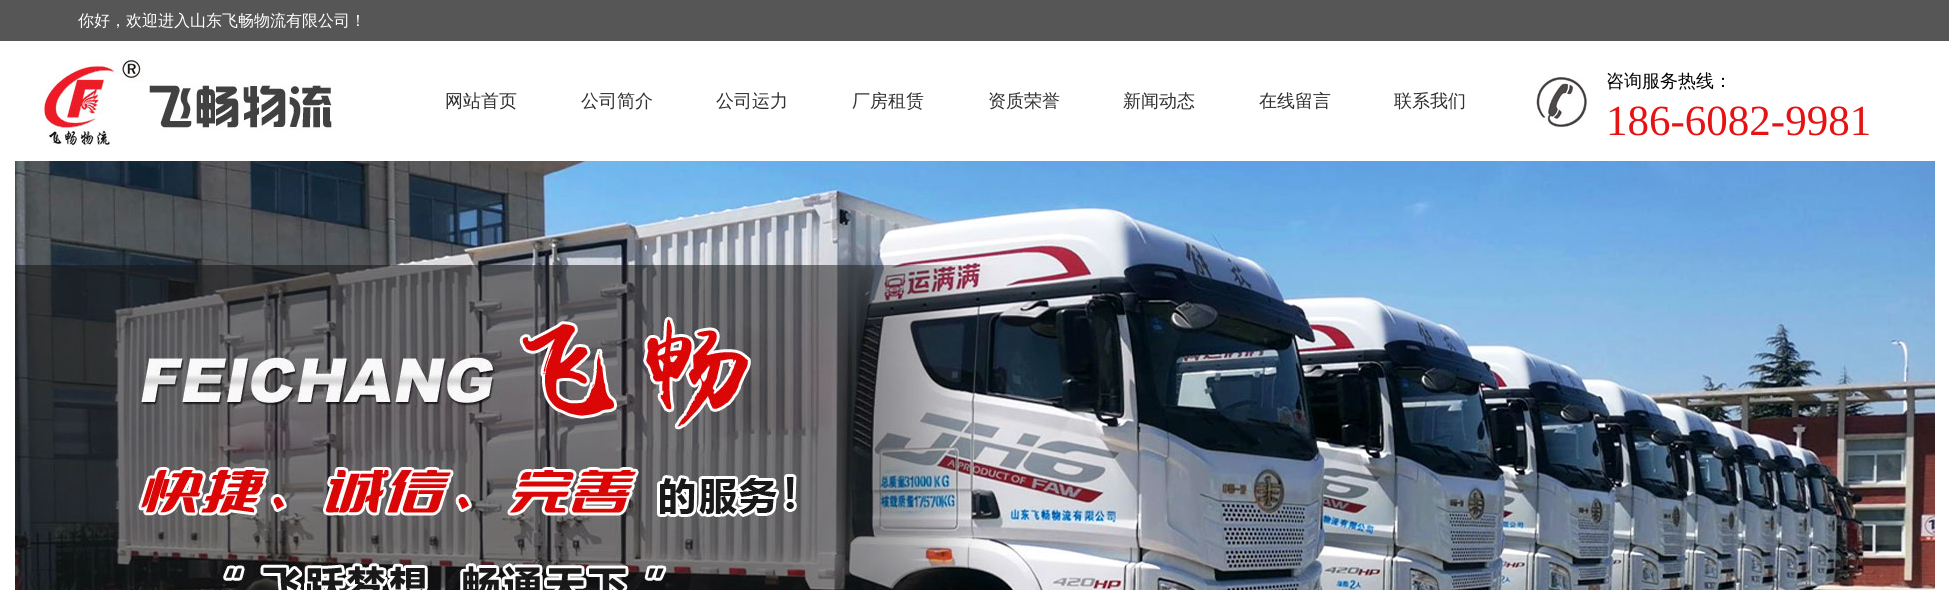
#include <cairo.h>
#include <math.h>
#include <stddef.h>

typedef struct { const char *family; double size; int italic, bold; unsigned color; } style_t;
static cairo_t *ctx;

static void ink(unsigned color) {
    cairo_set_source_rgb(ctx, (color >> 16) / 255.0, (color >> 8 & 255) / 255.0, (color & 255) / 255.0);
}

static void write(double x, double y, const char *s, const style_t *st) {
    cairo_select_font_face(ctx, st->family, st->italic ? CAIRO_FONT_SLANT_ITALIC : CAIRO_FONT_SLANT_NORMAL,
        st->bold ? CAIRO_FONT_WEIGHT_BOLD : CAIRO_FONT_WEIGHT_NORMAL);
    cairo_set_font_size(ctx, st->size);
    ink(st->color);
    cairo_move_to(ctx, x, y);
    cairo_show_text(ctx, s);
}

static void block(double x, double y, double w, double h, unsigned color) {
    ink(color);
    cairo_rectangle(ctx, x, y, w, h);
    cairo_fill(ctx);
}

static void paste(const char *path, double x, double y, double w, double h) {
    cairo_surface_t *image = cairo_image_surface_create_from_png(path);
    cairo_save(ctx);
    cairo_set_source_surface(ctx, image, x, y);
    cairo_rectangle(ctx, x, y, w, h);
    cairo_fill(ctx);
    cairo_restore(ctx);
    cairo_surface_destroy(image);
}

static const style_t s1 = {"WenQuanYi Zen Hei Medium", 16, 0, 0, 0xffffff};
static const style_t s2 = {"WenQuanYi Zen Hei Medium", 18, 0, 0, 0x2f2f2f};
static const style_t s3 = {"WenQuanYi Zen Hei Medium", 18, 0, 0, 0x000000};
static const style_t s4 = {"Liberation Serif", 43, 0, 0, 0xe51313};

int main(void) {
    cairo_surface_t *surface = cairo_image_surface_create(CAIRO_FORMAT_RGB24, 1949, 590);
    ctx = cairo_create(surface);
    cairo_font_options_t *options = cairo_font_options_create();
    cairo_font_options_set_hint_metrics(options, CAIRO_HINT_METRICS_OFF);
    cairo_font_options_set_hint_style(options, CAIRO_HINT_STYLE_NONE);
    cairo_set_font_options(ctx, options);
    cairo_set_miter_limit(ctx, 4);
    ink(0xffffff);
    cairo_paint(ctx);
    block(0, 0, 1949, 41, 0x565656);
    write(78, 26, "你好，欢迎进入山东飞畅物流有限公司！", &s1);
    paste("pic1.png", 39, 59, 296, 88);
    write(445, 107, "网站首页", &s2);
    write(581, 107, "公司简介", &s2);
    write(716, 107, "公司运力", &s2);
    write(852, 107, "厂房租赁", &s2);
    write(988, 107, "资质荣誉", &s2);
    write(1123, 107, "新闻动态", &s2);
    write(1259, 107, "在线留言", &s2);
    write(1394, 107, "联系我们", &s2);
    paste("pic2.png", 1536, 76, 51, 52);
    write(1606, 87, "咨询服务热线：", &s3);
    write(1606, 135, "186-6082-9981", &s4);
    paste("pic3.png", 15, 161, 1920, 429);
    cairo_surface_write_to_png(surface, "screenshot.png");
    cairo_font_options_destroy(options);
    cairo_destroy(ctx);
    cairo_surface_destroy(surface);
    return 0;
}
